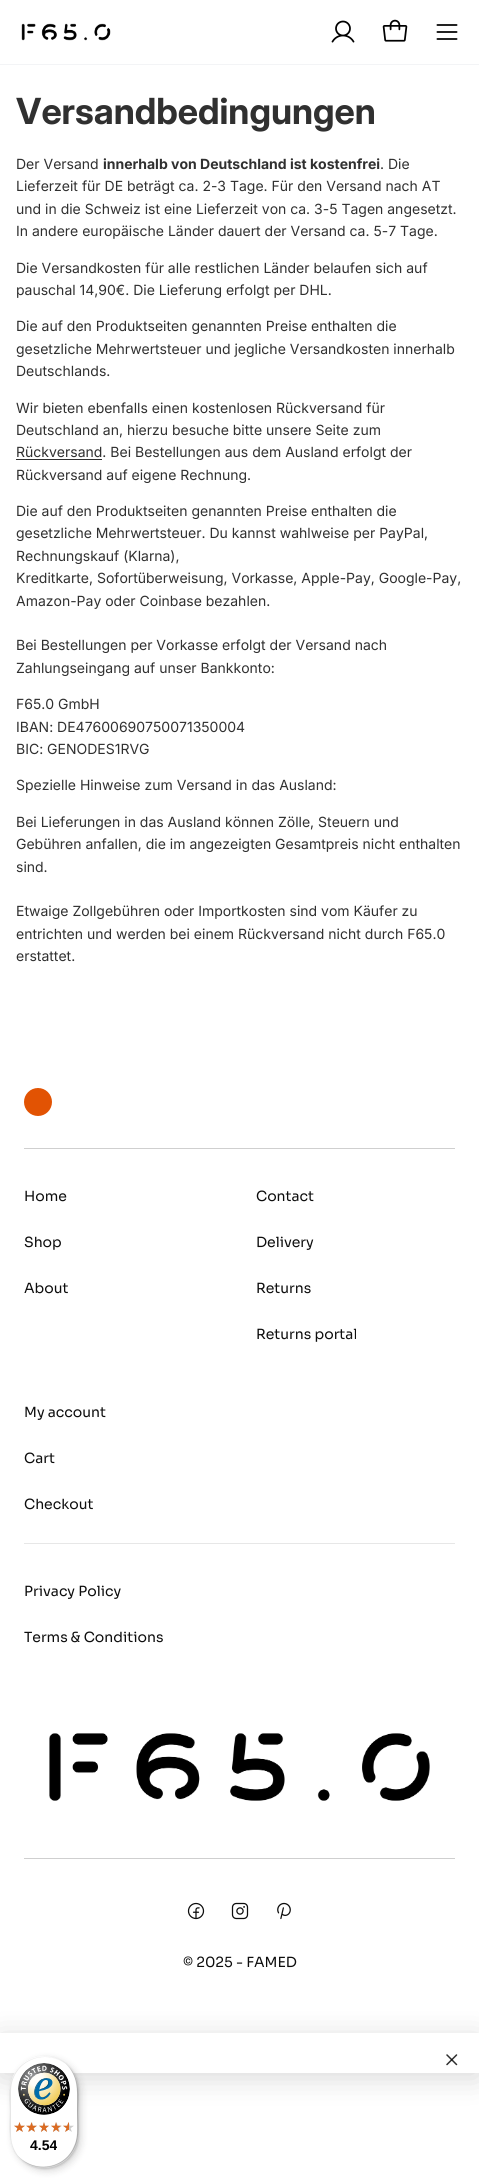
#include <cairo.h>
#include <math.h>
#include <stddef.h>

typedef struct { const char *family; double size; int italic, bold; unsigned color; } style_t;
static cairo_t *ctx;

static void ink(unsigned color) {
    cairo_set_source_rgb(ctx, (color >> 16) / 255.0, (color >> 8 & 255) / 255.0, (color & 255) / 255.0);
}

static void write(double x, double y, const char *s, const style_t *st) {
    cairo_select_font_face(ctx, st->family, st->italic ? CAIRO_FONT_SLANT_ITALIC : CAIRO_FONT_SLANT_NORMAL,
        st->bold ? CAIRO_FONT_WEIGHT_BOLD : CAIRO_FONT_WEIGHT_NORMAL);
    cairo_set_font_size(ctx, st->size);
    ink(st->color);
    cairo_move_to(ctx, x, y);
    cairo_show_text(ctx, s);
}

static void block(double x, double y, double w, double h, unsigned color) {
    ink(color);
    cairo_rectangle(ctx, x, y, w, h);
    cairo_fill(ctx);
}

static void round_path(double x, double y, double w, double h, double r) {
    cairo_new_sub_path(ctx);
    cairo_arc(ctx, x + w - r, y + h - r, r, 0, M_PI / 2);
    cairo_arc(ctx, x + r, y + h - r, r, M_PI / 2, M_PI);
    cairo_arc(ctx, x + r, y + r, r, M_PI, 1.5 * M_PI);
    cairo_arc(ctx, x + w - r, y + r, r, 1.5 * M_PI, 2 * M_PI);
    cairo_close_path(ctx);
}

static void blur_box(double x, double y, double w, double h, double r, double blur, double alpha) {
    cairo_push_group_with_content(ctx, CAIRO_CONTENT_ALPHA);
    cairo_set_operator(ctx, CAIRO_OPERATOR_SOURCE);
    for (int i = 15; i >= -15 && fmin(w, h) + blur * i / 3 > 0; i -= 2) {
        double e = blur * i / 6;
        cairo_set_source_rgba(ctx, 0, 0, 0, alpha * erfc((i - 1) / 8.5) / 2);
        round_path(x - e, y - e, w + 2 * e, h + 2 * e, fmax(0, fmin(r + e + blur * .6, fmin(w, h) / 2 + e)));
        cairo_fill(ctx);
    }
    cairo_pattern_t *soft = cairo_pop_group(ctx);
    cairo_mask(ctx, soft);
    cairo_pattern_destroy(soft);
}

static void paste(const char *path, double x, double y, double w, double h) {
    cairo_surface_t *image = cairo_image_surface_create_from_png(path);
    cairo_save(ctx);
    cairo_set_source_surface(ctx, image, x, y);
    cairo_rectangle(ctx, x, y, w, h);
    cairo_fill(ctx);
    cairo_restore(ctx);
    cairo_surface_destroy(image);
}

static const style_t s1 = {"Inter", 36, 0, 1, 0x303030};
static const style_t s2 = {"Inter", 14, 0, 0, 0x303030};
static const style_t s3 = {"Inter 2", 14, 0, 1, 0x303030};
static const style_t s4 = {"Sora", 14, 0, 0, 0x0d0d0d};
static const style_t s5 = {"Liberation Sans", 14, 0, 1, 0x000000};

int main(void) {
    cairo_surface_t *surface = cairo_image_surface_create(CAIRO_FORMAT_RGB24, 479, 2178);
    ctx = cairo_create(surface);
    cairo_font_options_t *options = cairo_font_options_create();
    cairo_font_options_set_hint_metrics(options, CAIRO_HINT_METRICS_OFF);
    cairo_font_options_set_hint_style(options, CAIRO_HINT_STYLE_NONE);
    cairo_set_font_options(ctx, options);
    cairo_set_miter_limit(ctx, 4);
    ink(0xffffff);
    cairo_paint(ctx);
    block(0, 64, 479, 1, 0xf3f4f6);
    paste("pic1.png", 21, 23, 90, 18);
    paste("pic2.png", 331, 20, 24, 23);
    paste("pic3.png", 382, 19, 26, 23);
    paste("pic4.png", 436, 24, 22, 16);
    write(16, 124, "Versandbedingungen", &s1);
    write(16, 169, "Der Versand", &s2);
    write(103, 169, "innerhalb von Deutschland ist kostenfrei", &s3);
    write(380, 169, ". Die", &s2);
    write(16, 191, "Lieferzeit für DE beträgt ca. 2-3 Tage. Für den Versand nach AT", &s2);
    write(16, 214, "und in die Schweiz ist eine Lieferzeit von ca. 3-5 Tagen angesetzt.", &s2);
    write(16, 236, "In andere europäische Länder dauert der Versand ca. 5-7 Tage.", &s2);
    write(16, 273, "Die Versandkosten für alle restlichen Länder belaufen sich auf", &s2);
    write(16, 295, "pauschal 14,90€. Die Lieferung erfolgt per DHL.", &s2);
    write(16, 331, "Die auf den Produktseiten genannten Preise enthalten die", &s2);
    write(16, 354, "gesetzliche Mehrwertsteuer und jegliche Versandkosten innerhalb", &s2);
    write(16, 376, "Deutschlands.", &s2);
    write(16, 413, "Wir bieten ebenfalls einen kostenlosen Rückversand für", &s2);
    write(16, 435, "Deutschland an, hierzu besuche bitte unsere Seite zum", &s2);
    block(16, 459, 86, 1, 0x303030);
    write(16, 457, "Rückversand. Bei Bestellungen aus dem Ausland erfolgt der", &s2);
    write(16, 480, "Rückversand auf eigene Rechnung.", &s2);
    write(16, 516, "Die auf den Produktseiten genannten Preise enthalten die", &s2);
    write(16, 538, "gesetzliche Mehrwertsteuer. Du kannst wahlweise per PayPal,", &s2);
    write(16, 561, "Rechnungskauf (Klarna),", &s2);
    write(16, 583, "Kreditkarte, Sofortüberweisung, Vorkasse, Apple-Pay, Google-Pay,", &s2);
    write(16, 606, "Amazon-Pay oder Coinbase bezahlen.", &s2);
    write(16, 650, "Bei Bestellungen per Vorkasse erfolgt der Versand nach", &s2);
    write(16, 673, "Zahlungseingang auf unser Bankkonto:", &s2);
    write(16, 709, "F65.0 GmbH", &s2);
    write(16, 732, "IBAN: DE47600690750071350004", &s2);
    write(16, 754, "BIC: GENODES1RVG", &s2);
    write(16, 790, "Spezielle Hinweise zum Versand in das Ausland:", &s2);
    write(16, 827, "Bei Lieferungen in das Ausland können Zölle, Steuern und", &s2);
    write(16, 849, "Gebühren anfallen, die im angezeigten Gesamtpreis nicht enthalten", &s2);
    write(16, 872, "sind.", &s2);
    write(16, 916, "Etwaige Zollgebühren oder Importkosten sind vom Käufer zu", &s2);
    write(16, 939, "entrichten und werden bei einem Rückversand nicht durch F65.0", &s2);
    write(16, 961, "erstattet.", &s2);
    ink(0xe25303);
    cairo_new_path(ctx);
    cairo_arc(ctx, 38, 1102, 14, 0, 2 * M_PI);
    cairo_fill(ctx);
    block(24, 1148, 431, 1, 0xcfcfcf);
    write(24, 1201, "Home", &s4);
    write(24, 1247, "Shop", &s4);
    write(24, 1293, "About", &s4);
    write(256, 1201, "Contact", &s4);
    write(256, 1247, "Delivery", &s4);
    write(256, 1293, "Returns", &s4);
    write(256, 1339, "Returns portal", &s4);
    write(24, 1417, "My account", &s4);
    write(24, 1463, "Cart", &s4);
    write(24, 1509, "Checkout", &s4);
    block(24, 1543, 431, 1, 0xe7e7e7);
    write(24, 1596, "Privacy Policy", &s4);
    write(24, 1642, "Terms & Conditions", &s4);
    paste("pic5.png", 49, 1733, 381, 68);
    block(24, 1858, 431, 1, 0xcfcfcf);
    paste("pic6.png", 187, 1902, 18, 18);
    paste("pic7.png", 231, 1902, 18, 18);
    paste("pic8.png", 277, 1902, 14, 18);
    write(183, 1967, "© 2025 - FAMED", &s4);
    cairo_save(ctx);
    cairo_set_fill_rule(ctx, CAIRO_FILL_RULE_EVEN_ODD);
    cairo_new_path(ctx);
    cairo_move_to(ctx, 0, 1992);
    cairo_line_to(ctx, 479, 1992);
    cairo_line_to(ctx, 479, 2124);
    cairo_line_to(ctx, 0, 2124);
    cairo_close_path(ctx);
    cairo_move_to(ctx, 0, 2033);
    cairo_line_to(ctx, 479, 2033);
    cairo_line_to(ctx, 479, 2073);
    cairo_line_to(ctx, 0, 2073);
    cairo_close_path(ctx);
    cairo_clip(ctx);
    ink(0x000000);
    blur_box(0, 2038, 479, 40, 0, 15, 0.15);
    cairo_restore(ctx);
    cairo_new_path(ctx);
    cairo_move_to(ctx, 456.5, 2055);
    cairo_line_to(ctx, 447, 2064.5);
    ink(0x303030);
    cairo_set_line_width(ctx, 1.5);
    cairo_set_line_cap(ctx, CAIRO_LINE_CAP_ROUND);
    cairo_set_line_join(ctx, CAIRO_LINE_JOIN_ROUND);
    cairo_stroke(ctx);
    cairo_new_path(ctx);
    cairo_move_to(ctx, 456.5, 2064.5);
    cairo_line_to(ctx, 447, 2055);
    cairo_set_source_rgba(ctx, 0, 0, 0, 0.81);
    cairo_stroke(ctx);
    ink(0x000000);
    blur_box(13, 2059, 68, 112, 34, 4, 0.15);
    blur_box(11, 2057, 68, 112, 34, 1, 0.15);
    ink(0xffffff);
    round_path(10, 2056, 68, 112, 34);
    cairo_fill(ctx);
    cairo_set_source_rgba(ctx, 0, 0, 0, 0.1);
    cairo_new_path(ctx);
    cairo_move_to(ctx, 45, 2057);
    cairo_curve_to(ctx, 53, 2057, 61, 2060, 67, 2065);
    cairo_curve_to(ctx, 50, 2050, 22, 2056, 13, 2077);
    cairo_curve_to(ctx, 8, 2087, 10, 2101, 10, 2112);
    cairo_curve_to(ctx, 10, 2127, 7, 2144, 19, 2157);
    cairo_curve_to(ctx, 14, 2151, 11, 2143, 11, 2135);
    cairo_line_to(ctx, 11, 2091);
    cairo_curve_to(ctx, 11, 2072, 26, 2057, 45, 2057);
    cairo_close_path(ctx);
    cairo_fill(ctx);
    cairo_set_source_rgba(ctx, 0, 0, 0, 0.2);
    cairo_new_path(ctx);
    cairo_move_to(ctx, 21, 2159);
    cairo_curve_to(ctx, 38, 2174, 66, 2168, 75, 2147);
    cairo_curve_to(ctx, 80, 2137, 78, 2123, 78, 2112);
    cairo_curve_to(ctx, 78, 2097, 81, 2080, 69, 2067);
    cairo_curve_to(ctx, 79, 2080, 77, 2096, 77, 2111);
    cairo_curve_to(ctx, 77, 2122, 79, 2136, 74, 2146);
    cairo_curve_to(ctx, 66, 2167, 39, 2173, 21, 2159);
    cairo_close_path(ctx);
    cairo_fill(ctx);
    cairo_set_source_rgba(ctx, 0.196, 0.196, 0.196, 0.2);
    cairo_new_path(ctx);
    cairo_move_to(ctx, 17, 2155);
    cairo_curve_to(ctx, 24, 2163, 33, 2168, 44, 2168);
    cairo_curve_to(ctx, 63, 2168, 78, 2153, 78, 2134);
    cairo_line_to(ctx, 78, 2090);
    cairo_curve_to(ctx, 78, 2079, 73, 2070, 65, 2063);
    cairo_curve_to(ctx, 72, 2070, 77, 2079, 77, 2089);
    cairo_line_to(ctx, 77, 2133);
    cairo_curve_to(ctx, 77, 2152, 62, 2167, 43, 2167);
    cairo_curve_to(ctx, 33, 2167, 24, 2162, 17, 2155);
    cairo_close_path(ctx);
    cairo_fill(ctx);
    cairo_set_source_rgba(ctx, 1, 1, 1, 0.3);
    cairo_set_fill_rule(ctx, CAIRO_FILL_RULE_EVEN_ODD);
    cairo_new_path(ctx);
    cairo_move_to(ctx, 44, 2168);
    cairo_curve_to(ctx, 63, 2168, 78, 2153, 78, 2134);
    cairo_curve_to(ctx, 78, 2152, 62, 2168, 44, 2168);
    cairo_close_path(ctx);
    cairo_move_to(ctx, 78, 2090);
    cairo_curve_to(ctx, 78, 2071, 63, 2056, 44, 2056);
    cairo_curve_to(ctx, 62, 2056, 78, 2071, 78, 2090);
    cairo_close_path(ctx);
    cairo_fill(ctx);
    paste("pic9.png", 18, 2063, 52, 52);
    paste("pic10.png", 14, 2122, 11, 10);
    paste("pic11.png", 27, 2122, 10, 10);
    paste("pic12.png", 39, 2122, 10, 10);
    paste("pic13.png", 51, 2122, 11, 10);
    paste("pic13.png", 63, 2122, 11, 10);
    paste("pic14.png", 14, 2122, 11, 10);
    paste("pic15.png", 26, 2122, 11, 10);
    paste("pic16.png", 39, 2122, 10, 10);
    paste("pic17.png", 51, 2122, 10, 10);
    paste("pic18.png", 63, 2122, 6, 10);
    write(30, 2150, "4.54", &s5);
    cairo_surface_write_to_png(surface, "screenshot.png");
    cairo_font_options_destroy(options);
    cairo_destroy(ctx);
    cairo_surface_destroy(surface);
    return 0;
}
